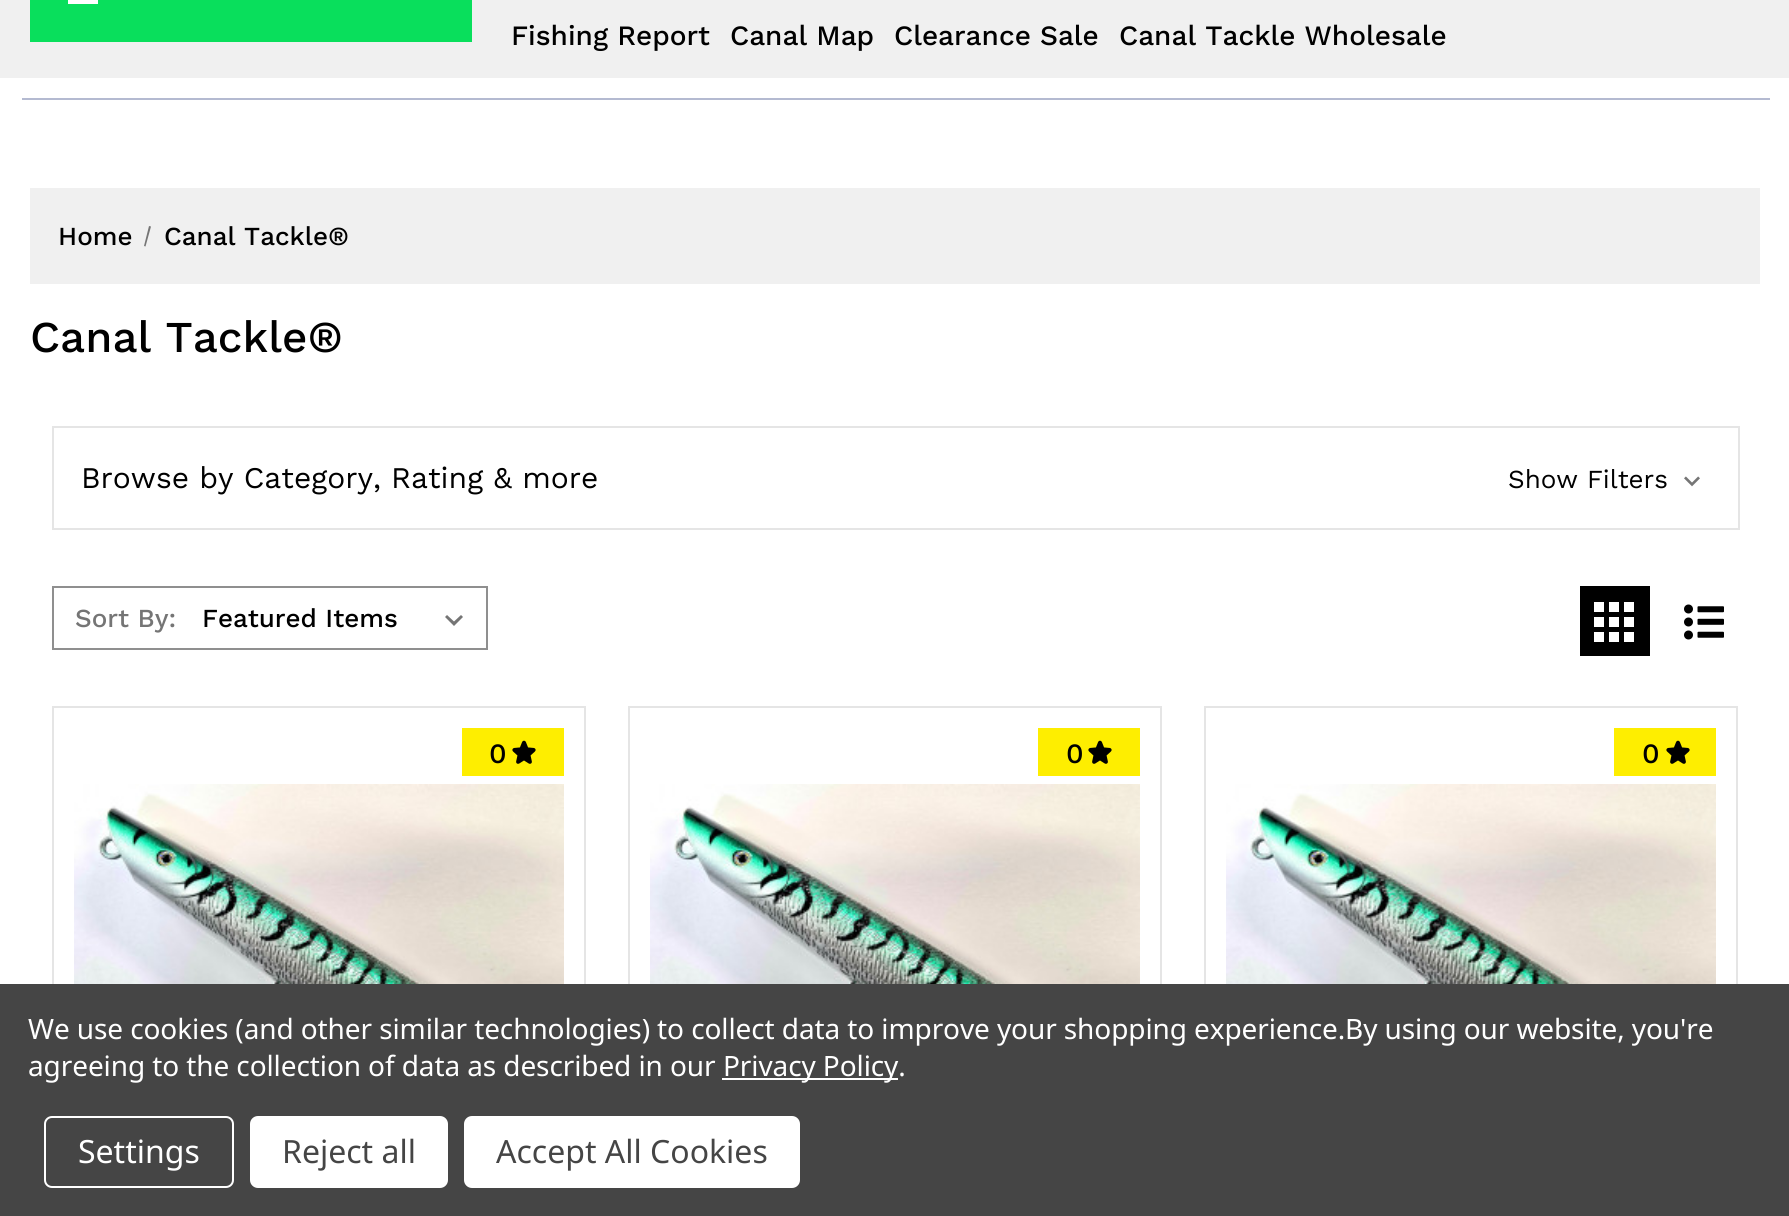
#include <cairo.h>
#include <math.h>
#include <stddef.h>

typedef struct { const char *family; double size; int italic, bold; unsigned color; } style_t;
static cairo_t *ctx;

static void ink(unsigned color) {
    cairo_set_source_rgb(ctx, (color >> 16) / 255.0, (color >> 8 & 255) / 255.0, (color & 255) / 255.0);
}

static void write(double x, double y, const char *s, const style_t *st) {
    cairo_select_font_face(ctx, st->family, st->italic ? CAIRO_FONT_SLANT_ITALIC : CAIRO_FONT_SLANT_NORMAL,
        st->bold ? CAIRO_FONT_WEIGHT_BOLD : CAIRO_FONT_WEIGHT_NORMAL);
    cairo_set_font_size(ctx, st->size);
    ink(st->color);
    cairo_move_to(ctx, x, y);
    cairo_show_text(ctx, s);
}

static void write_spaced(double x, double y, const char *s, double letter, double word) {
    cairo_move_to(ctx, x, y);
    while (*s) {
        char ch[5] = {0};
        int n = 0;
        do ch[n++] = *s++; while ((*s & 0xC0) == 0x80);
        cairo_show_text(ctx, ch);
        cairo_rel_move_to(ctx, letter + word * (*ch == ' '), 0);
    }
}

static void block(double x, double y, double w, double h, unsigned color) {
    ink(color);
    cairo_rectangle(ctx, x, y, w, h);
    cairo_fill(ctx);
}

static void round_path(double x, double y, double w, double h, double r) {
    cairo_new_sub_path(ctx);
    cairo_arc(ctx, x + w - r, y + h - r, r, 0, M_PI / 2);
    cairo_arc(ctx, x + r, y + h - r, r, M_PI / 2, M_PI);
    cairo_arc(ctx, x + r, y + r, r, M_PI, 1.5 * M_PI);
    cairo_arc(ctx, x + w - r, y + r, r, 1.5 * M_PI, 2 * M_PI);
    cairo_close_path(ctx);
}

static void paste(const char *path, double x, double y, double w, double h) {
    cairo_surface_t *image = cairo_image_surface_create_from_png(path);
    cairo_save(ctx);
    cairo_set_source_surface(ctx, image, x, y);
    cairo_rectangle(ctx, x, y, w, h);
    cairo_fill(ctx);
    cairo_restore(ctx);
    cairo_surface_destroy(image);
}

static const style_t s1 = {"Work Sans Medium", 28, 0, 0, 0x000000};
static const style_t s2 = {"Work Sans Medium", 26, 0, 0, 0x000000};
static const style_t s3 = {"Work Sans Medium", 44, 0, 0, 0x000000};
static const style_t s4 = {"Work Sans", 30, 0, 0, 0x000000};
static const style_t s5 = {"Work Sans", 26, 0, 0, 0x000000};
static const style_t s6 = {"Work Sans Medium", 26, 0, 0, 0x757575};
static const style_t s7 = {"Noto Sans", 32, 0, 0, 0xffffff};
static const style_t s8 = {"Noto Sans", 32, 0, 0, 0x454545};

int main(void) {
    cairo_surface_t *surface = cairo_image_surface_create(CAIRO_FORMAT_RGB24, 1789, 1216);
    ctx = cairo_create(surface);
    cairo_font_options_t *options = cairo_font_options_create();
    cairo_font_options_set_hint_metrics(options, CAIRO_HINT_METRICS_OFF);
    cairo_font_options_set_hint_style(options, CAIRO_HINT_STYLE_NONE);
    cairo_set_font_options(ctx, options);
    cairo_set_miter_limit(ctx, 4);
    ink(0xffffff);
    cairo_paint(ctx);
    block(0, 0, 1789, 78, 0xf0f0f0);
    block(30, 0, 442, 42, 0x09df5c);
    block(68, 0, 30, 4, 0xffffff);
    write(511, 45, "Fishing Report", &s1);
    write(730, 45, "Canal Map", &s1);
    write(894, 45, "Clearance Sale", &s1);
    write(1119, 45, "Canal Tackle Wholesale", &s1);
    block(22, 98, 1748, 2, 0xb4bad1);
    block(30, 188, 1730, 96, 0xf0f0f0);
    write(58, 245, "Home", &s2);
    ink(0x757575);
    cairo_new_path(ctx);
    cairo_move_to(ctx, 149, 226);
    cairo_line_to(ctx, 151, 226.5);
    cairo_line_to(ctx, 145.5, 246.5);
    cairo_line_to(ctx, 144, 246);
    cairo_close_path(ctx);
    cairo_fill(ctx);
    write(164, 245, "Canal Tackle®", &s2);
    write(30, 352, "Canal Tackle®", &s3);
    cairo_rectangle(ctx, 53, 427, 1686, 102);
    ink(0xe5e5e5);
    cairo_stroke(ctx);
    write(81, 488, "Browse by Category, Rating & more", &s4);
    write(1508, 488, "Show Filters", &s5);
    paste("pic1.png", 1684, 476, 16, 11);
    cairo_rectangle(ctx, 53, 587, 434, 62);
    ink(0x8f8f8f);
    cairo_stroke(ctx);
    write(75, 627, "Sort By:", &s6);
    cairo_new_path(ctx);
    cairo_move_to(ctx, 461, 615);
    cairo_line_to(ctx, 454, 621.5);
    cairo_line_to(ctx, 447, 615);
    cairo_line_to(ctx, 445, 617);
    cairo_line_to(ctx, 454, 626);
    cairo_line_to(ctx, 463, 617);
    cairo_close_path(ctx);
    cairo_fill(ctx);
    write(202, 627, "Featured Items", &s2);
    block(1580, 586, 70, 70, 0x000000);
    paste("pic2.png", 1594, 602, 40, 40);
    paste("pic3.png", 1684, 604, 40, 36);
    cairo_rectangle(ctx, 53, 707, 532, 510);
    ink(0xe5e5e5);
    cairo_stroke(ctx);
    block(462, 728, 102, 48, 0xfeee00);
    write(489, 763, "0", &s1);
    paste("pic4.png", 512, 740, 24, 24);
    paste("pic5.png", 74, 784, 490, 200);
    cairo_rectangle(ctx, 629, 707, 532, 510);
    ink(0xe5e5e5);
    cairo_stroke(ctx);
    block(1038, 728, 102, 48, 0xfeee00);
    write(1066, 763, "0", &s1);
    paste("pic4.png", 1088, 740, 24, 24);
    paste("pic6.png", 650, 784, 490, 200);
    cairo_rectangle(ctx, 1205, 707, 532, 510);
    ink(0xe5e5e5);
    cairo_stroke(ctx);
    block(1614, 728, 102, 48, 0xfeee00);
    write(1642, 763, "0", &s1);
    paste("pic4.png", 1666, 740, 24, 24);
    paste("pic7.png", 1226, 784, 490, 200);
    block(0, 984, 1789, 232, 0x454545);
    cairo_select_font_face(ctx, "Noto Sans", CAIRO_FONT_SLANT_NORMAL, CAIRO_FONT_WEIGHT_NORMAL);
    ink(0xffffff);
    write_spaced(28, 1039, "We use cookies (and other similar technologies) to collect data to improve your shopping experience.By using our website, you're", -0.1, 0);
    write_spaced(28, 1076, "agreeing to the collection of data as described in our", -0.1, 0);
    block(722, 1078, 176, 2, 0xffffff);
    write_spaced(723, 1076, "Privacy Policy.", -0.1, 0);
    round_path(45, 1117, 188, 70, 7);
    cairo_stroke(ctx);
    write(78, 1163, "Settings", &s7);
    round_path(250, 1116, 198, 72, 8);
    cairo_fill(ctx);
    write(282, 1163, "Reject all", &s8);
    ink(0xffffff);
    round_path(464, 1116, 336, 72, 8);
    cairo_fill(ctx);
    write(496, 1163, "Accept All Cookies", &s8);
    cairo_surface_write_to_png(surface, "screenshot.png");
    cairo_font_options_destroy(options);
    cairo_destroy(ctx);
    cairo_surface_destroy(surface);
    return 0;
}
